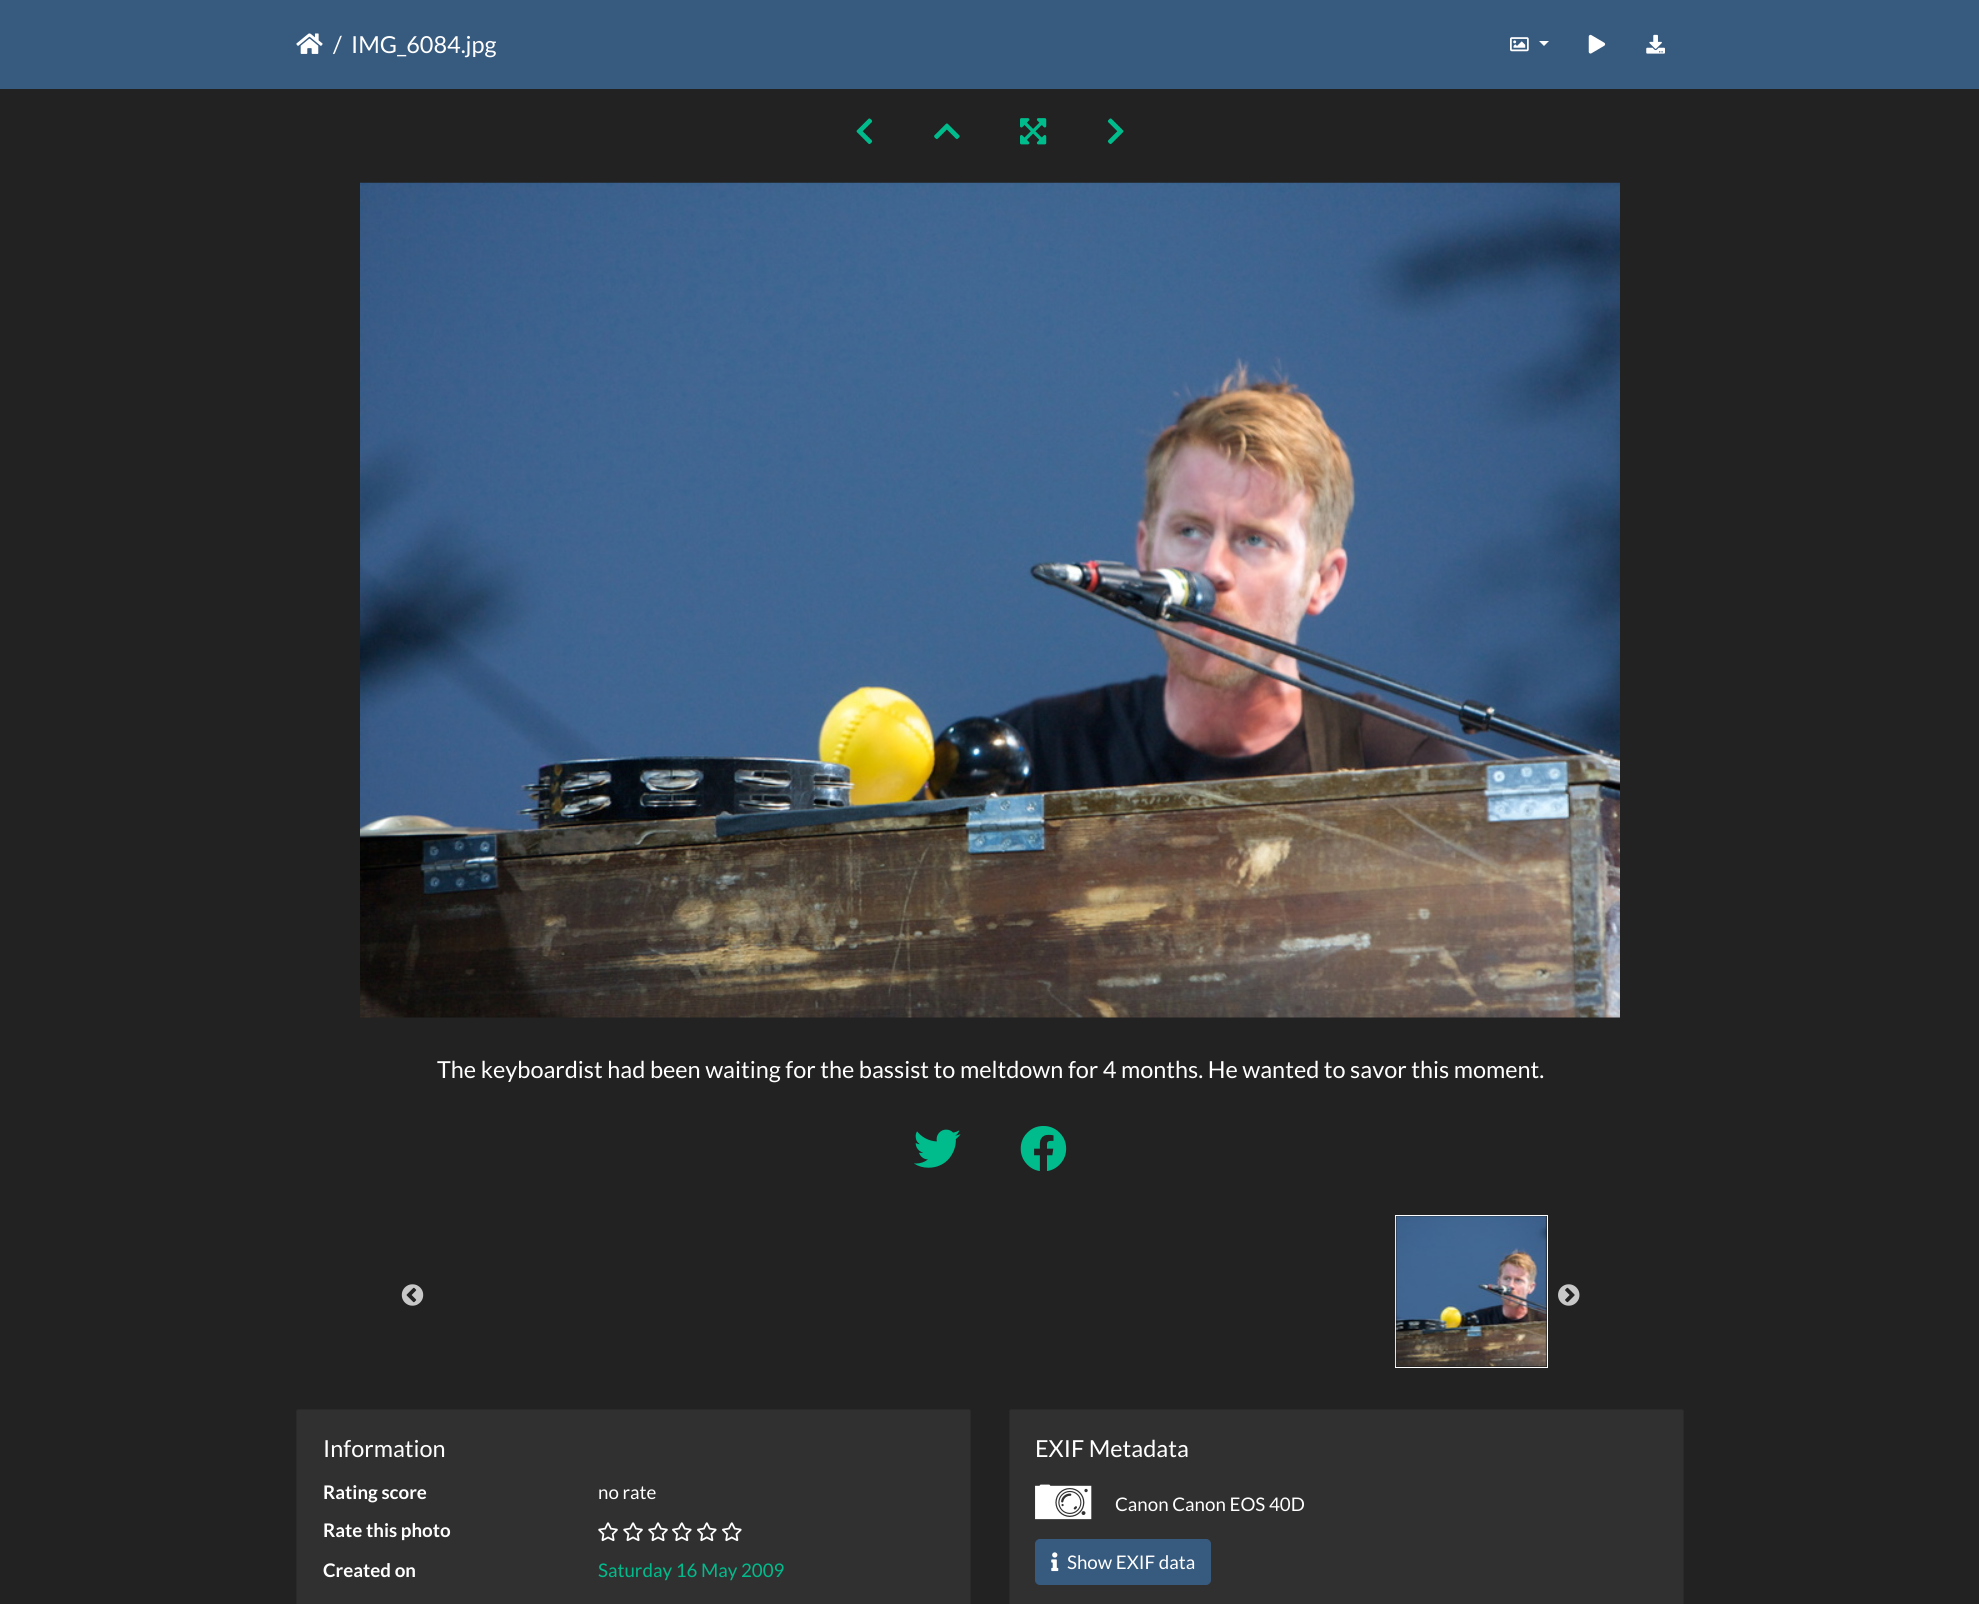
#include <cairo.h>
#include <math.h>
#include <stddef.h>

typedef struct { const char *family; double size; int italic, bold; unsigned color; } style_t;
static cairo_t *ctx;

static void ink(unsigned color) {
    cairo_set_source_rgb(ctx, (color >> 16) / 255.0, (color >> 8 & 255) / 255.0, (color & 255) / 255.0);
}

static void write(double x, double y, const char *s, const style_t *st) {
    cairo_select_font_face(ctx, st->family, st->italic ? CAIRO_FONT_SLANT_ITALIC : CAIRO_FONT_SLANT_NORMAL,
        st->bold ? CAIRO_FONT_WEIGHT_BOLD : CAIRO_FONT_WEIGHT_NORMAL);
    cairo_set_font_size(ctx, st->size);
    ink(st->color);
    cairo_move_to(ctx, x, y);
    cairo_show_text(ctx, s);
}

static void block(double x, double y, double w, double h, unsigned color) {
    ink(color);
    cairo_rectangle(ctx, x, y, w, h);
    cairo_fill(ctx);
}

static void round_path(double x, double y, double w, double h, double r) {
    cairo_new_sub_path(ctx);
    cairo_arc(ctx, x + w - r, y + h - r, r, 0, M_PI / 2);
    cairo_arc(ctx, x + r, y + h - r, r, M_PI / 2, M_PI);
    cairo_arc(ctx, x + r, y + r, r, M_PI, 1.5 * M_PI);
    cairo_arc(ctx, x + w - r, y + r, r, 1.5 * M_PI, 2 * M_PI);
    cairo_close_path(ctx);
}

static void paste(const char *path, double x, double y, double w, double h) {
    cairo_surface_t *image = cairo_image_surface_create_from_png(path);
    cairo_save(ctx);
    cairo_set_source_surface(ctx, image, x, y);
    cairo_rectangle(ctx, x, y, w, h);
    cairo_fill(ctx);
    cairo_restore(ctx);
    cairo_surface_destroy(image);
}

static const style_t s1 = {"Lato", 23.45, 0, 0, 0xffffff};
static const style_t s2 = {"Lato", 18.75, 0, 1, 0xffffff};
static const style_t s3 = {"Lato", 18.75, 0, 0, 0xffffff};
static const style_t s4 = {"Lato", 18.75, 0, 0, 0x00bc8c};

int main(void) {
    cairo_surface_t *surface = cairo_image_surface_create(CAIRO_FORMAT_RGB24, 1979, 1604);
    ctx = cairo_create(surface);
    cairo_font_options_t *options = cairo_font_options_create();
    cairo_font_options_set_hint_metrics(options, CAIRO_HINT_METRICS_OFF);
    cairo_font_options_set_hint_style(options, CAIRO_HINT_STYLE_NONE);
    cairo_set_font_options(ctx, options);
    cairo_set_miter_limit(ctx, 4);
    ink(0x222222);
    cairo_paint(ctx);
    block(0, 0, 1979, 89, 0x375a7f);
    paste("pic1.png", 296, 33, 27, 21);
    write(333, 53, "/", &s1);
    cairo_save(ctx);
    cairo_rectangle(ctx, 323, 26, 173, 35);
    cairo_clip(ctx);
    write(351, 53, "IMG_6084.jpg", &s1);
    cairo_restore(ctx);
    paste("pic2.png", 1510, 37, 19, 15);
    cairo_new_path(ctx);
    cairo_move_to(ctx, 1539, 41);
    cairo_line_to(ctx, 1549, 41);
    cairo_line_to(ctx, 1544, 46);
    cairo_close_path(ctx);
    cairo_fill(ctx);
    paste("pic3.png", 1588, 34, 18, 20);
    paste("pic4.png", 1646, 34, 19, 20);
    paste("pic5.png", 856, 118, 17, 26);
    paste("pic6.png", 934, 123, 26, 16);
    paste("pic7.png", 1020, 118, 27, 27);
    paste("pic8.png", 1107, 118, 17, 26);
    paste("pic9.png", 360, 182, 1260, 836);
    write(437, 1078, "The keyboardist had been waiting for the bassist to meltdown for 4 months. He wanted to savor this moment.", &s1);
    paste("pic10.png", 914, 1129, 47, 39);
    paste("pic11.png", 1020, 1126, 47, 45);
    paste("pic12.png", 401, 1284, 23, 22);
    cairo_rectangle(ctx, 1395.5, 1215.5, 152, 152);
    cairo_set_line_width(ctx, 1);
    cairo_stroke(ctx);
    paste("pic13.png", 1395, 1216, 152, 151);
    paste("pic14.png", 1558, 1284, 22, 22);
    ink(0x303030);
    round_path(296, 1409, 675, 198, 2.5);
    cairo_fill(ctx);
    round_path(296.5, 1409.5, 674, 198, 2);
    cairo_set_source_rgba(ctx, 0, 0, 0, 0.12);
    cairo_stroke(ctx);
    write(323, 1457, "Information", &s1);
    write(323, 1499, "Rating score", &s2);
    write(598, 1499, "no rate", &s3);
    write(323, 1537, "Rate this photo", &s2);
    paste("pic15.png", 598, 1522, 20, 20);
    paste("pic15.png", 623, 1522, 20, 20);
    paste("pic15.png", 648, 1522, 20, 20);
    paste("pic16.png", 672, 1522, 20, 20);
    paste("pic16.png", 697, 1522, 20, 20);
    paste("pic16.png", 722, 1522, 20, 20);
    write(323, 1577, "Created on", &s2);
    write(598, 1577, "Saturday 16 May 2009", &s4);
    ink(0x303030);
    round_path(1009, 1409, 675, 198, 2.5);
    cairo_fill(ctx);
    round_path(1009.5, 1409.5, 674, 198, 2);
    cairo_set_source_rgba(ctx, 0, 0, 0, 0.12);
    cairo_stroke(ctx);
    write(1035, 1457, "EXIF Metadata", &s1);
    paste("pic17.png", 1035, 1484, 57, 36);
    write(1115, 1511, "Canon Canon EOS 40D", &s3);
    ink(0x375a7f);
    round_path(1035.5, 1539.5, 175, 45, 4.5);
    cairo_fill_preserve(ctx);
    cairo_stroke(ctx);
    paste("pic18.png", 1051, 1552, 8, 20);
    write(1067, 1569, "Show EXIF data", &s3);
    cairo_surface_write_to_png(surface, "screenshot.png");
    cairo_font_options_destroy(options);
    cairo_destroy(ctx);
    cairo_surface_destroy(surface);
    return 0;
}
